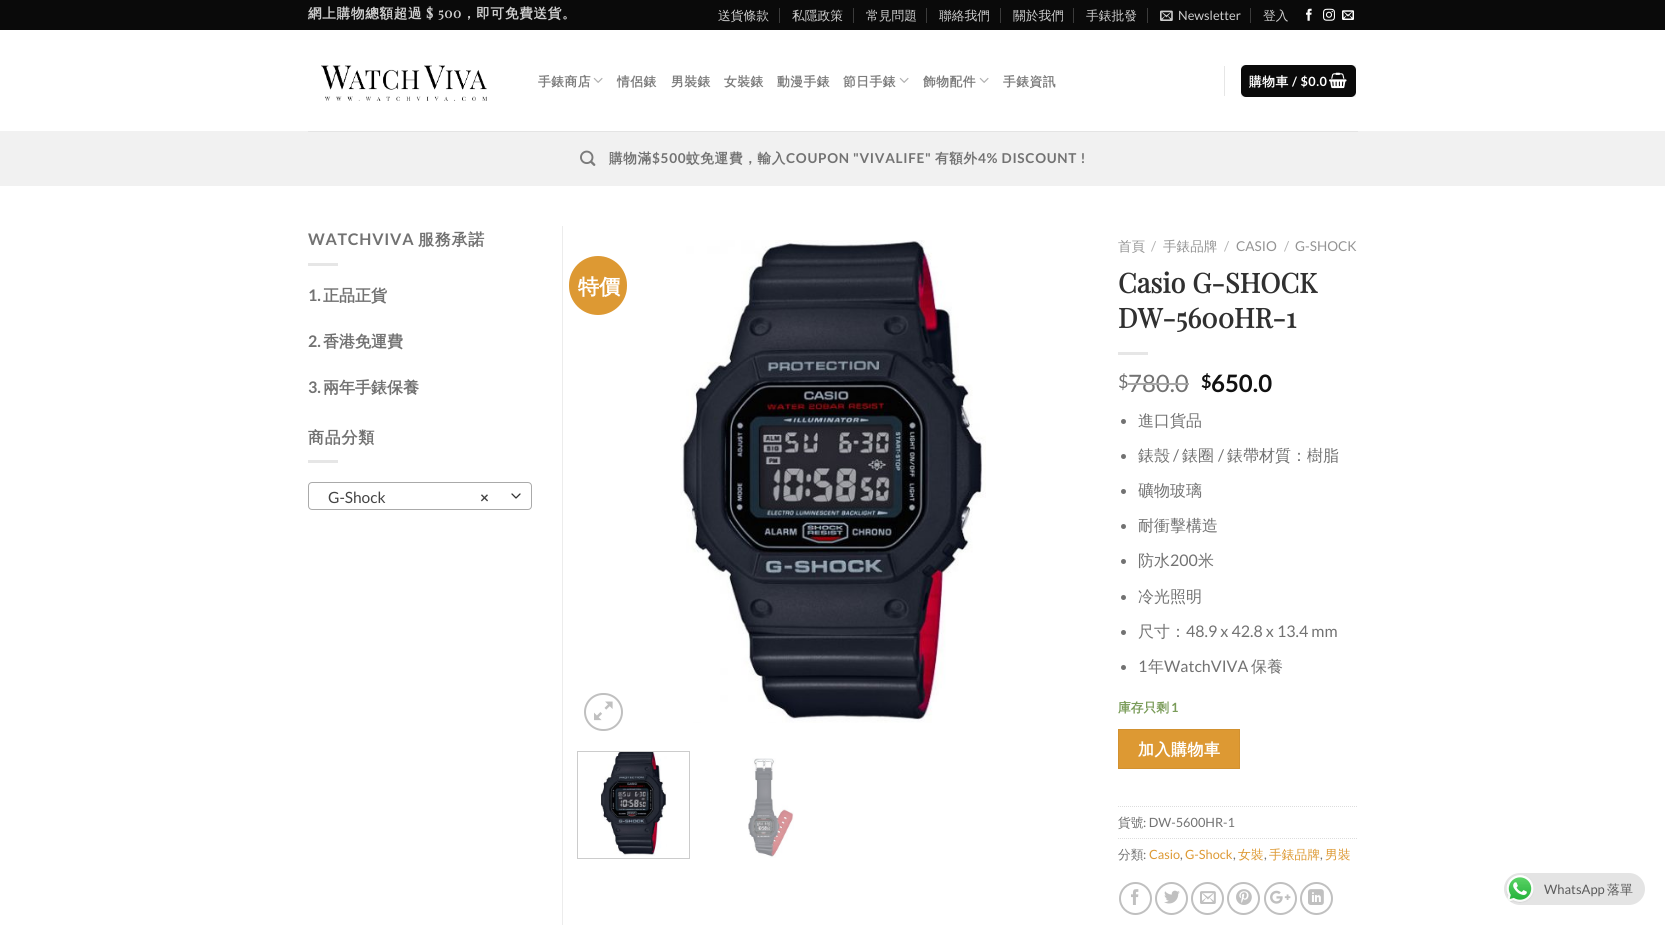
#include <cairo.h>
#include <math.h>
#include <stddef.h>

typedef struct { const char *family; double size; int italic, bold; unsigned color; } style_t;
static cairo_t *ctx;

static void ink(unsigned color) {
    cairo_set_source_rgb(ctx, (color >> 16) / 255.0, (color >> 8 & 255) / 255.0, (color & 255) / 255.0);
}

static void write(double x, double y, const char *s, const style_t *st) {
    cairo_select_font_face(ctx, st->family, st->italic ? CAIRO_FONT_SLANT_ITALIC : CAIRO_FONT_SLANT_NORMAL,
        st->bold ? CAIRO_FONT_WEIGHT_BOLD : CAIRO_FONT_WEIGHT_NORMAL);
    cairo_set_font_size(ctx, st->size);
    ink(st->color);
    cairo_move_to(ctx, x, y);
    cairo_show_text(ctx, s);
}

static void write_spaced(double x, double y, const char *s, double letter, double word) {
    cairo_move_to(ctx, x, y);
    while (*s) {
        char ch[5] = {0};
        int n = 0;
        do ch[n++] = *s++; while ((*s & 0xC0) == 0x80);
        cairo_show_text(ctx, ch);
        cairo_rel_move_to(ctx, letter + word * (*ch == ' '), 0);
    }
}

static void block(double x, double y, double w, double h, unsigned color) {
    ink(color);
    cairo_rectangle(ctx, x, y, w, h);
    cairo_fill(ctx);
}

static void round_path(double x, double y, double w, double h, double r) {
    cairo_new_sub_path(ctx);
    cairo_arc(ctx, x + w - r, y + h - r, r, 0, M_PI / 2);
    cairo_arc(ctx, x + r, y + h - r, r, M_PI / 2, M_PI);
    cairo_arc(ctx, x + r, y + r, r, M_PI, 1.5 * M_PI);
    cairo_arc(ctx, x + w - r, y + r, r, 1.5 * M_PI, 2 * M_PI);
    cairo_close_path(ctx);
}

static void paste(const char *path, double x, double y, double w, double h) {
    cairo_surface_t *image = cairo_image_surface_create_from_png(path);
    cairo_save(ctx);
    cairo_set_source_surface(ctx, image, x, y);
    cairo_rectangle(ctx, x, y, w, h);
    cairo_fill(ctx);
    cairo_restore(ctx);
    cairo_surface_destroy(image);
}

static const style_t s1 = {"WenQuanYi Zen Hei Medium", 12.75, 0, 0, 0xcecece};
static const style_t s2 = {"Lato", 12.75, 0, 0, 0xcecece};
static const style_t s3 = {"Lato", 16, 0, 1, 0x727272};
static const style_t s4 = {"WenQuanYi Zen Hei", 16, 0, 1, 0x727272};
static const style_t s5 = {"Lato", 15.5, 0, 0, 0x444444};
static const style_t s6 = {"Lato", 15.5, 0, 1, 0x444444};
static const style_t s7 = {"WenQuanYi Zen Hei", 21, 0, 1, 0xffffff};
static const style_t s8 = {"WenQuanYi Zen Hei Medium", 13.6, 0, 0, 0x949494};
static const style_t s9 = {"Lato", 13.6, 0, 0, 0xb2b2b2};
static const style_t s10 = {"Lato", 13.6, 0, 0, 0x949494};
static const style_t s11 = {"Playfair Display", 27.25, 0, 1, 0x303030};
static const style_t s12 = {"Lato", 18, 0, 0, 0x727272};
static const style_t s13 = {"Lato", 24, 0, 0, 0x727272};
static const style_t s14 = {"Lato", 18, 0, 1, 0x111111};
static const style_t s15 = {"Lato", 24, 0, 1, 0x111111};
static const style_t s16 = {"WenQuanYi Zen Hei Medium", 16, 0, 0, 0x727272};
static const style_t s17 = {"Lato", 16, 0, 0, 0x727272};
static const style_t s18 = {"WenQuanYi Zen Hei", 12.75, 0, 1, 0x7a9c59};
static const style_t s19 = {"Lato", 12.75, 0, 1, 0x7a9c59};
static const style_t s20 = {"WenQuanYi Zen Hei Medium", 12.75, 0, 0, 0x727272};
static const style_t s21 = {"Lato", 12.75, 0, 0, 0x727272};
static const style_t s22 = {"Lato", 12.75, 0, 0, 0xdd9933};
static const style_t s23 = {"WenQuanYi Zen Hei Medium", 12.75, 0, 0, 0xdd9933};
static const style_t s24 = {"Lato", 13, 0, 0, 0x5b5b5b};
static const style_t s25 = {"WenQuanYi Zen Hei Medium", 13, 0, 0, 0x5b5b5b};

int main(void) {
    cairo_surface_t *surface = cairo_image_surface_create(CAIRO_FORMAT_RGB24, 1665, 925);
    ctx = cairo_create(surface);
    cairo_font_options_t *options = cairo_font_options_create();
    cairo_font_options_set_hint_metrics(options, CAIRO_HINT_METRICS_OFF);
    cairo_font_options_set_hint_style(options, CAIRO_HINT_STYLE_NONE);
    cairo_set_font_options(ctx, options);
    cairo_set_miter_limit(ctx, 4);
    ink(0xffffff);
    cairo_paint(ctx);
    block(0, 0, 1665, 30, 0x0a0a0a);
    cairo_select_font_face(ctx, "WenQuanYi Zen Hei", CAIRO_FONT_SLANT_NORMAL, CAIRO_FONT_WEIGHT_BOLD);
    cairo_set_font_size(ctx, 13.6);
    ink(0xcecece);
    write_spaced(308, 18, "網上購物總額超過", 0.7, 0);
    cairo_select_font_face(ctx, "Playfair Display", CAIRO_FONT_SLANT_NORMAL, CAIRO_FONT_WEIGHT_BOLD);
    write_spaced(426, 18, "$ 500", 0.7, 0);
    cairo_select_font_face(ctx, "WenQuanYi Zen Hei", CAIRO_FONT_SLANT_NORMAL, CAIRO_FONT_WEIGHT_BOLD);
    write_spaced(462, 18, "，即可免費送貨。", 0.7, 0);
    write(718, 20, "送貨條款", &s1);
    block(779, 8, 1, 15, 0x3b3b3b);
    write(792, 20, "私隱政策", &s1);
    block(853, 8, 1, 15, 0x3b3b3b);
    write(866, 20, "常見問題", &s1);
    block(926, 8, 1, 15, 0x3b3b3b);
    write(939, 20, "聯絡我們", &s1);
    block(1000, 8, 1, 15, 0x3b3b3b);
    write(1013, 20, "關於我們", &s1);
    block(1073, 8, 1, 15, 0x3b3b3b);
    write(1086, 20, "手錶批發", &s1);
    block(1147, 8, 1, 15, 0x3b3b3b);
    paste("pic1.png", 1160, 10, 13, 11);
    write(1178, 20, "Newsletter", &s2);
    block(1250, 8, 1, 15, 0x3b3b3b);
    write(1263, 20, "登入", &s1);
    paste("pic2.png", 1306, 8, 6, 13);
    paste("pic3.png", 1323, 8, 12, 13);
    paste("pic4.png", 1342, 10, 12, 10);
    paste("pic5.png", 321, 65, 166, 36);
    cairo_select_font_face(ctx, "WenQuanYi Zen Hei", CAIRO_FONT_SLANT_NORMAL, CAIRO_FONT_WEIGHT_BOLD);
    ink(0x7d7d7d);
    write_spaced(538, 86, "手錶商店", 0.5, 0);
    paste("pic6.png", 593, 77, 10, 6);
    write_spaced(617, 86, "情侶錶", 0.5, 0);
    write_spaced(671, 86, "男裝錶", 0.5, 0);
    write_spaced(724, 86, "女裝錶", 0.5, 0);
    write_spaced(777, 86, "動漫手錶", 0.5, 0);
    write_spaced(843, 86, "節日手錶", 0.5, 0);
    paste("pic6.png", 899, 77, 10, 6);
    write_spaced(923, 86, "飾物配件", 0.5, 0);
    paste("pic6.png", 979, 77, 10, 6);
    write_spaced(1003, 86, "手錶資訊", 0.5, 0);
    block(1224, 66, 1, 30, 0xe6e6e6);
    ink(0x0a0a0a);
    round_path(1241, 65, 115, 32, 5);
    cairo_fill(ctx);
    cairo_rectangle(ctx, 1241.5, 65.5, 114, 31);
    cairo_set_source_rgba(ctx, 0, 0, 0, 0.05);
    cairo_set_line_width(ctx, 1);
    cairo_stroke(ctx);
    ink(0xffffff);
    write_spaced(1249, 86, "購物車", 0.5, 0);
    cairo_select_font_face(ctx, "Lato", CAIRO_FONT_SLANT_NORMAL, CAIRO_FONT_WEIGHT_BOLD);
    write_spaced(1292, 86, "/ $0.0", 0.5, 0);
    paste("pic7.png", 1329, 72, 18, 17);
    block(0, 131, 1665, 55, 0xf1f1f1);
    block(308, 131, 1050, 1, 0xe4e4e4);
    paste("pic8.png", 580, 150, 16, 16);
    cairo_select_font_face(ctx, "WenQuanYi Zen Hei", CAIRO_FONT_SLANT_NORMAL, CAIRO_FONT_WEIGHT_BOLD);
    cairo_set_font_size(ctx, 13.6);
    ink(0x727272);
    write_spaced(609, 163, "購物滿", 0.7, 0);
    cairo_select_font_face(ctx, "Lato", CAIRO_FONT_SLANT_NORMAL, CAIRO_FONT_WEIGHT_BOLD);
    write_spaced(652, 163, "$500", 0.7, 0);
    cairo_select_font_face(ctx, "WenQuanYi Zen Hei", CAIRO_FONT_SLANT_NORMAL, CAIRO_FONT_WEIGHT_BOLD);
    write_spaced(686, 163, "蚊免運費，輸入", 0.7, 0);
    cairo_select_font_face(ctx, "Lato", CAIRO_FONT_SLANT_NORMAL, CAIRO_FONT_WEIGHT_BOLD);
    write_spaced(786, 163, "COUPON \"VIVALIFE\"", 0.7, 0);
    cairo_select_font_face(ctx, "WenQuanYi Zen Hei", CAIRO_FONT_SLANT_NORMAL, CAIRO_FONT_WEIGHT_BOLD);
    write_spaced(935, 163, "有額外", 0.7, 0);
    cairo_select_font_face(ctx, "Lato", CAIRO_FONT_SLANT_NORMAL, CAIRO_FONT_WEIGHT_BOLD);
    write_spaced(978, 163, "4% DISCOUNT !", 0.7, 0);
    block(562, 226, 1, 699, 0xececec);
    cairo_set_font_size(ctx, 16);
    ink(0x727272);
    write_spaced(308, 245, "WATCHVIVA", 0.75, 0);
    cairo_select_font_face(ctx, "WenQuanYi Zen Hei", CAIRO_FONT_SLANT_NORMAL, CAIRO_FONT_WEIGHT_BOLD);
    write_spaced(418, 245, "服務承諾", 0.75, 0);
    block(308, 263, 30, 3, 0xe6e6e6);
    write(308, 301, "1.", &s3);
    write(323, 301, "正品正貨", &s4);
    write(308, 347, "2.", &s3);
    write(323, 347, "香港免運費", &s4);
    write(308, 393, "3.", &s3);
    write(323, 393, "兩年手錶保養", &s4);
    write_spaced(308, 443, "商品分類", 0.75, 0);
    block(308, 460, 30, 3, 0xe6e6e6);
    cairo_new_path(ctx);
    cairo_move_to(ctx, 512, 494);
    cairo_line_to(ctx, 516, 498);
    cairo_line_to(ctx, 520, 494);
    ink(0x333333);
    cairo_set_line_width(ctx, 1.3);
    cairo_set_line_cap(ctx, CAIRO_LINE_CAP_ROUND);
    cairo_set_line_join(ctx, CAIRO_LINE_JOIN_ROUND);
    cairo_stroke(ctx);
    round_path(308.5, 482.5, 223, 27, 3.5);
    ink(0xaaaaaa);
    cairo_set_line_width(ctx, 1);
    cairo_set_line_cap(ctx, CAIRO_LINE_CAP_BUTT);
    cairo_set_line_join(ctx, CAIRO_LINE_JOIN_MITER);
    cairo_stroke(ctx);
    write(328, 503, "G-Shock", &s5);
    write(480, 503, "×", &s6);
    ink(0xdd9933);
    round_path(569, 256, 58, 59, 29);
    cairo_fill(ctx);
    write(578, 294, "特價", &s7);
    paste("pic9.png", 680, 240, 306, 483);
    round_path(585, 694, 37, 36, 18);
    ink(0xc0c0c0);
    cairo_set_line_width(ctx, 2);
    cairo_stroke(ctx);
    paste("pic10.png", 594, 701, 19, 20);
    cairo_rectangle(ctx, 577.5, 751.5, 112, 107);
    ink(0xcccccc);
    cairo_set_line_width(ctx, 1);
    cairo_stroke(ctx);
    paste("pic11.png", 600, 752, 67, 104);
    paste("pic12.png", 748, 758, 46, 100);
    write(1118, 251, "首頁", &s8);
    write(1151, 251, "/", &s9);
    write(1163, 251, "手錶品牌", &s8);
    write(1224, 251, "/", &s9);
    write(1236, 251, "CASIO", &s10);
    write(1284, 251, "/", &s9);
    write(1295, 251, "G-SHOCK", &s10);
    write(1118, 293, "Casio G-SHOCK", &s11);
    write(1118, 328, "DW-5600HR-1", &s11);
    block(1118, 352, 30, 3, 0xe6e6e6);
    write(1118, 388, "$", &s12);
    write(1128, 392, "780.0", &s13);
    block(1128, 383, 61, 2, 0xaaaaaa);
    write(1201, 388, "$", &s14);
    write(1211, 392, "650.0", &s15);
    ink(0x727272);
    cairo_new_path(ctx);
    cairo_arc(ctx, 1123.5, 421.5, 2.5, 0, 2 * M_PI);
    cairo_fill(ctx);
    write(1138, 426, "進口貨品", &s16);
    cairo_new_path(ctx);
    cairo_arc(ctx, 1123.5, 456.5, 2.5, 0, 2 * M_PI);
    cairo_fill(ctx);
    write(1138, 461, "錶殼", &s16);
    write(1173, 461, "/", &s17);
    write(1182, 461, "錶圈", &s16);
    write(1218, 461, "/", &s17);
    write(1227, 461, "錶帶材質：樹脂", &s16);
    cairo_new_path(ctx);
    cairo_arc(ctx, 1123.5, 491.5, 2.5, 0, 2 * M_PI);
    cairo_fill(ctx);
    write(1138, 496, "礦物玻璃", &s16);
    cairo_new_path(ctx);
    cairo_arc(ctx, 1123.5, 526.5, 2.5, 0, 2 * M_PI);
    cairo_fill(ctx);
    write(1138, 531, "耐衝擊構造", &s16);
    cairo_new_path(ctx);
    cairo_arc(ctx, 1123.5, 561.5, 2.5, 0, 2 * M_PI);
    cairo_fill(ctx);
    write(1138, 566, "防水", &s16);
    write(1170, 566, "200", &s17);
    write(1198, 566, "米", &s16);
    cairo_new_path(ctx);
    cairo_arc(ctx, 1123.5, 597.5, 2.5, 0, 2 * M_PI);
    cairo_fill(ctx);
    write(1138, 602, "冷光照明", &s16);
    cairo_new_path(ctx);
    cairo_arc(ctx, 1123.5, 632.5, 2.5, 0, 2 * M_PI);
    cairo_fill(ctx);
    write(1138, 637, "尺寸：", &s16);
    write(1186, 637, "48.9 x 42.8 x 13.4 mm", &s17);
    cairo_new_path(ctx);
    cairo_arc(ctx, 1123.5, 667.5, 2.5, 0, 2 * M_PI);
    cairo_fill(ctx);
    write(1138, 672, "1", &s17);
    write(1148, 672, "年", &s16);
    write(1164, 672, "WatchVIVA", &s17);
    write(1251, 672, "保養", &s16);
    write(1118, 712, "庫存只剩", &s18);
    write(1171, 712, "1", &s19);
    ink(0xdd9933);
    cairo_rectangle(ctx, 1118.5, 729.5, 121, 39);
    cairo_fill_preserve(ctx);
    ink(0xd29130);
    cairo_stroke(ctx);
    cairo_select_font_face(ctx, "WenQuanYi Zen Hei", CAIRO_FONT_SLANT_NORMAL, CAIRO_FONT_WEIGHT_BOLD);
    cairo_set_font_size(ctx, 16);
    ink(0xffffff);
    write_spaced(1138, 755, "加入購物車", 0.5, 0);
    cairo_new_path(ctx);
    cairo_move_to(ctx, 1118, 806.5);
    cairo_line_to(ctx, 1358, 806.5);
    ink(0xdddddd);
    cairo_set_dash(ctx, (double[]){1, 1}, 2, 0);
    cairo_stroke(ctx);
    write(1118, 827, "貨號", &s20);
    write(1143, 827, ": DW-5600HR-1", &s21);
    cairo_new_path(ctx);
    cairo_move_to(ctx, 1118, 838.5);
    cairo_line_to(ctx, 1358, 838.5);
    ink(0xdddddd);
    cairo_stroke(ctx);
    write(1118, 859, "分類", &s20);
    write(1143, 859, ":", &s21);
    write(1149, 859, "Casio", &s22);
    write(1180, 859, ",", &s21);
    write(1185, 859, "G-Shock", &s22);
    write(1233, 859, ",", &s21);
    write(1238, 859, "女裝", &s23);
    write(1264, 859, ",", &s21);
    write(1269, 859, "手錶品牌", &s23);
    write(1320, 859, ",", &s21);
    write(1325, 859, "男裝", &s23);
    cairo_new_path(ctx);
    cairo_arc(ctx, 1135.5, 898.5, 15.5, 0, 2 * M_PI);
    ink(0xc0c0c0);
    cairo_set_line_width(ctx, 2);
    cairo_set_dash(ctx, NULL, 0, 0);
    cairo_stroke(ctx);
    paste("pic13.png", 1131, 889, 8, 16);
    cairo_arc(ctx, 1171.5, 898.5, 15.5, 0, 2 * M_PI);
    cairo_stroke(ctx);
    paste("pic14.png", 1164, 890, 16, 14);
    cairo_arc(ctx, 1207.5, 898.5, 15.5, 0, 2 * M_PI);
    cairo_stroke(ctx);
    paste("pic15.png", 1200, 891, 16, 13);
    cairo_arc(ctx, 1243.5, 898.5, 15.5, 0, 2 * M_PI);
    cairo_stroke(ctx);
    paste("pic16.png", 1236, 889, 16, 16);
    cairo_arc(ctx, 1280.5, 898.5, 15.5, 0, 2 * M_PI);
    cairo_stroke(ctx);
    paste("pic17.png", 1270, 890, 21, 14);
    cairo_arc(ctx, 1316.5, 898.5, 15.5, 0, 2 * M_PI);
    cairo_stroke(ctx);
    paste("pic18.png", 1308, 889, 16, 16);
    ink(0xe4e4e4);
    round_path(1504, 873, 141, 32, 16);
    cairo_fill(ctx);
    paste("pic19.png", 1506, 875, 28, 28);
    write(1544, 894, "WhatsApp", &s24);
    write(1607, 894, "落單", &s25);
    cairo_surface_write_to_png(surface, "screenshot.png");
    cairo_font_options_destroy(options);
    cairo_destroy(ctx);
    cairo_surface_destroy(surface);
    return 0;
}
